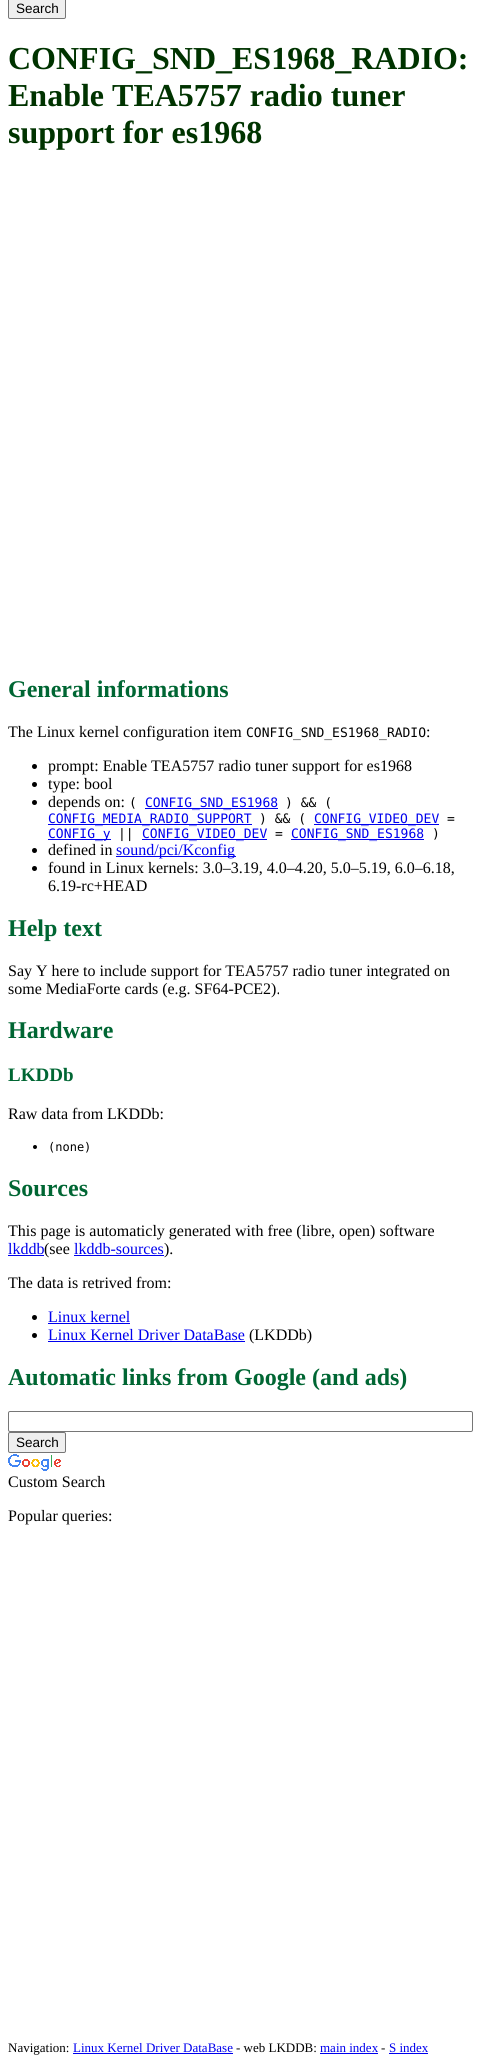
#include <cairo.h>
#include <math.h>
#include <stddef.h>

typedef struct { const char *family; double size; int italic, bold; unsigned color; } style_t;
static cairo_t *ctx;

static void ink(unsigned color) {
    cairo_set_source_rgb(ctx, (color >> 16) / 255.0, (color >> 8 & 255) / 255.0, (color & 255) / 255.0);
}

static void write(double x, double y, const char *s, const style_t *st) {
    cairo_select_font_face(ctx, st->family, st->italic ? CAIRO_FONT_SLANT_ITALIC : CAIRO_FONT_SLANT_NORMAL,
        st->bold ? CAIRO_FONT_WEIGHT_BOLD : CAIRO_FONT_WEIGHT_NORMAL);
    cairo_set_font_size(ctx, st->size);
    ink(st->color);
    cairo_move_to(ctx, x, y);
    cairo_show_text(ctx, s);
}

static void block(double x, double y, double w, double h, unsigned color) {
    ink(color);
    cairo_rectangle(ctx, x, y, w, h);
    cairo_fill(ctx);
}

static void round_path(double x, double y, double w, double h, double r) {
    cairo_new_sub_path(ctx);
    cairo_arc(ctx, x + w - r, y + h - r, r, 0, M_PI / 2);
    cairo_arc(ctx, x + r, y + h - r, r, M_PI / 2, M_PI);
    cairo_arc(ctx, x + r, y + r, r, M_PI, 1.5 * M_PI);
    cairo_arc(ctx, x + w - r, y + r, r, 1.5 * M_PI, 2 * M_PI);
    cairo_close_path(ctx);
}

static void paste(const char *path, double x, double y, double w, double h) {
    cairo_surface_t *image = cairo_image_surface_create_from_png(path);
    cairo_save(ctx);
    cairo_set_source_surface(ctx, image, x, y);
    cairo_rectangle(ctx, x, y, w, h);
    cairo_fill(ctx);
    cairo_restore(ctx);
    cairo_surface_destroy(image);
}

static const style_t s1 = {"Liberation Sans", 13.5, 0, 0, 0x000000};
static const style_t s2 = {"Liberation Serif", 32, 0, 1, 0x003300};
static const style_t s3 = {"Liberation Serif", 24, 0, 1, 0x006633};
static const style_t s4 = {"Liberation Serif", 16, 0, 0, 0x000000};
static const style_t s5 = {"DejaVu Sans Mono", 13, 0, 0, 0x000000};
static const style_t s6 = {"DejaVu Sans Mono", 13, 0, 0, 0x0000ee};
static const style_t s7 = {"Liberation Serif", 16, 0, 0, 0x0000ee};
static const style_t s8 = {"Liberation Serif", 19, 0, 1, 0x006633};
static const style_t s9 = {"DejaVu Sans Mono", 12, 0, 0, 0x000000};
static const style_t s10 = {"Liberation Serif", 13, 0, 0, 0x000000};
static const style_t s11 = {"Liberation Serif", 13, 0, 0, 0x0000ee};

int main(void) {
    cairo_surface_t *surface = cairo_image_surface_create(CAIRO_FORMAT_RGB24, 483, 2068);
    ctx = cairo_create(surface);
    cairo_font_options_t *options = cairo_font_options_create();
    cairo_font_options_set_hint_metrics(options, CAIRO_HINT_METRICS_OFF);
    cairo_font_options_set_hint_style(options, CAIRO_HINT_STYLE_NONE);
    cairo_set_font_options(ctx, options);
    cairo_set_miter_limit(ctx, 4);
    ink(0xffffff);
    cairo_paint(ctx);
    ink(0xefefef);
    round_path(8.5, -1.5, 57, 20, 1.5);
    cairo_fill_preserve(ctx);
    ink(0x767676);
    cairo_set_line_width(ctx, 1);
    cairo_stroke(ctx);
    write(16, 13, "Search", &s1);
    write(8, 69, "CONFIG_SND_ES1968_RADIO:", &s2);
    write(8, 106, "Enable TEA5757 radio tuner", &s2);
    write(8, 143, "support for es1968", &s2);
    write(8, 697, "General informations", &s3);
    write(8, 737, "The Linux kernel configuration item", &s4);
    write(246, 737, "CONFIG_SND_ES1968_RADIO", &s5);
    write(426, 737, ":", &s4);
    cairo_new_path(ctx);
    cairo_arc(ctx, 34.5, 766.5, 2.5, 0, 2 * M_PI);
    cairo_fill(ctx);
    write(48, 771, "prompt: Enable TEA5757 radio tuner support for es1968", &s4);
    cairo_new_path(ctx);
    cairo_arc(ctx, 34.5, 784.5, 2.5, 0, 2 * M_PI);
    cairo_fill(ctx);
    write(48, 789, "type: bool", &s4);
    cairo_new_path(ctx);
    cairo_arc(ctx, 34.5, 802.5, 2.5, 0, 2 * M_PI);
    cairo_fill(ctx);
    write(48, 807, "depends on:", &s4);
    write(129, 807, "(", &s5);
    block(145, 808, 133, 1, 0x0000ee);
    write(145, 807, "CONFIG_SND_ES1968", &s6);
    write(285, 807, ") && (", &s5);
    block(48, 824, 204, 1, 0x0000ee);
    write(48, 823, "CONFIG_MEDIA_RADIO_SUPPORT", &s6);
    write(259, 823, ") && (", &s5);
    block(314, 824, 125, 1, 0x0000ee);
    write(314, 823, "CONFIG_VIDEO_DEV", &s6);
    write(447, 823, "=", &s5);
    block(48, 839, 63, 1, 0x0000ee);
    write(48, 838, "CONFIG_y", &s6);
    write(118, 838, "||", &s5);
    block(142, 839, 125, 1, 0x0000ee);
    write(142, 838, "CONFIG_VIDEO_DEV", &s6);
    write(275, 838, "=", &s5);
    block(291, 839, 133, 1, 0x0000ee);
    write(291, 838, "CONFIG_SND_ES1968", &s6);
    write(432, 838, ")", &s5);
    cairo_new_path(ctx);
    cairo_arc(ctx, 34.5, 850.5, 2.5, 0, 2 * M_PI);
    cairo_fill(ctx);
    write(48, 855, "defined in", &s4);
    block(116, 856, 120, 1, 0x0000ee);
    write(116, 855, "sound/pci/Kconfig", &s7);
    ink(0x000000);
    cairo_new_path(ctx);
    cairo_arc(ctx, 34.5, 868.5, 2.5, 0, 2 * M_PI);
    cairo_fill(ctx);
    write(48, 873, "found in Linux kernels: 3.0–3.19, 4.0–4.20, 5.0–5.19, 6.0–6.18,", &s4);
    write(48, 891, "6.19-rc+HEAD", &s4);
    write(8, 936, "Help text", &s3);
    write(8, 976, "Say Y here to include support for TEA5757 radio tuner integrated on", &s4);
    write(8, 994, "some MediaForte cards (e.g. SF64-PCE2).", &s4);
    write(8, 1038, "Hardware", &s3);
    write(8, 1081, "LKDDb", &s8);
    write(8, 1119, "Raw data from LKDDb:", &s4);
    cairo_new_path(ctx);
    cairo_arc(ctx, 35, 1147, 2, 0, 2 * M_PI);
    cairo_fill(ctx);
    write(48, 1151, "(none)", &s9);
    write(8, 1196, "Sources", &s3);
    write(8, 1236, "This page is automaticly generated with free (libre, open) software", &s4);
    write(8, 1254, "lkddb", &s7);
    block(8, 1255, 36, 1, 0x0000ee);
    write(44, 1254, "(see", &s4);
    write(74, 1254, "lkddb-sources", &s7);
    block(74, 1255, 90, 1, 0x0000ee);
    write(164, 1254, ").", &s4);
    write(8, 1288, "The data is retrived from:", &s4);
    cairo_new_path(ctx);
    cairo_arc(ctx, 34.5, 1317.5, 2.5, 0, 2 * M_PI);
    cairo_fill(ctx);
    write(48, 1322, "Linux kernel", &s7);
    block(48, 1323, 82, 1, 0x0000ee);
    ink(0x000000);
    cairo_new_path(ctx);
    cairo_arc(ctx, 34.5, 1335.5, 2.5, 0, 2 * M_PI);
    cairo_fill(ctx);
    write(48, 1340, "Linux Kernel Driver DataBase", &s7);
    block(48, 1341, 197, 1, 0x0000ee);
    write(249, 1340, "(LKDDb)", &s4);
    write(8, 1385, "Automatic links from Google (and ads)", &s3);
    round_path(8.5, 1411.5, 464, 20, 1.5);
    ink(0x767676);
    cairo_stroke(ctx);
    ink(0xefefef);
    round_path(8.5, 1432.5, 57, 20, 1.5);
    cairo_fill_preserve(ctx);
    ink(0x767676);
    cairo_stroke(ctx);
    write(16, 1447, "Search", &s1);
    paste("pic1.png", 8, 1454, 53, 17);
    write(8, 1487, "Custom Search", &s4);
    write(8, 1521, "Popular queries:", &s4);
    write(8, 2052, "Navigation:", &s10);
    write(73, 2052, "Linux Kernel Driver DataBase", &s11);
    block(73, 2053, 160, 1, 0x0000ee);
    write(236, 2052, "- web LKDDB:", &s10);
    write(320, 2052, "main index", &s11);
    block(320, 2053, 58, 1, 0x0000ee);
    write(381, 2052, "-", &s10);
    write(389, 2052, "S index", &s11);
    block(389, 2053, 39, 1, 0x0000ee);
    cairo_surface_write_to_png(surface, "screenshot.png");
    cairo_font_options_destroy(options);
    cairo_destroy(ctx);
    cairo_surface_destroy(surface);
    return 0;
}
